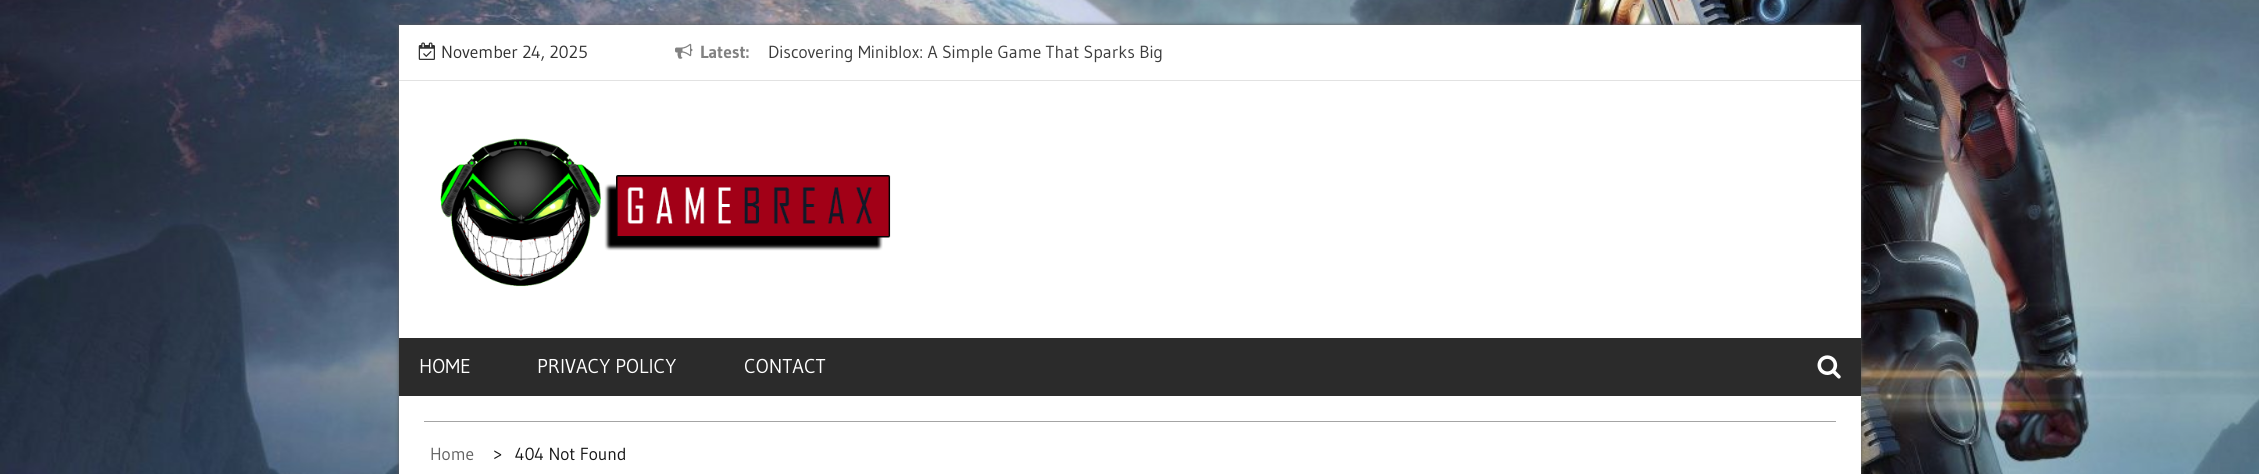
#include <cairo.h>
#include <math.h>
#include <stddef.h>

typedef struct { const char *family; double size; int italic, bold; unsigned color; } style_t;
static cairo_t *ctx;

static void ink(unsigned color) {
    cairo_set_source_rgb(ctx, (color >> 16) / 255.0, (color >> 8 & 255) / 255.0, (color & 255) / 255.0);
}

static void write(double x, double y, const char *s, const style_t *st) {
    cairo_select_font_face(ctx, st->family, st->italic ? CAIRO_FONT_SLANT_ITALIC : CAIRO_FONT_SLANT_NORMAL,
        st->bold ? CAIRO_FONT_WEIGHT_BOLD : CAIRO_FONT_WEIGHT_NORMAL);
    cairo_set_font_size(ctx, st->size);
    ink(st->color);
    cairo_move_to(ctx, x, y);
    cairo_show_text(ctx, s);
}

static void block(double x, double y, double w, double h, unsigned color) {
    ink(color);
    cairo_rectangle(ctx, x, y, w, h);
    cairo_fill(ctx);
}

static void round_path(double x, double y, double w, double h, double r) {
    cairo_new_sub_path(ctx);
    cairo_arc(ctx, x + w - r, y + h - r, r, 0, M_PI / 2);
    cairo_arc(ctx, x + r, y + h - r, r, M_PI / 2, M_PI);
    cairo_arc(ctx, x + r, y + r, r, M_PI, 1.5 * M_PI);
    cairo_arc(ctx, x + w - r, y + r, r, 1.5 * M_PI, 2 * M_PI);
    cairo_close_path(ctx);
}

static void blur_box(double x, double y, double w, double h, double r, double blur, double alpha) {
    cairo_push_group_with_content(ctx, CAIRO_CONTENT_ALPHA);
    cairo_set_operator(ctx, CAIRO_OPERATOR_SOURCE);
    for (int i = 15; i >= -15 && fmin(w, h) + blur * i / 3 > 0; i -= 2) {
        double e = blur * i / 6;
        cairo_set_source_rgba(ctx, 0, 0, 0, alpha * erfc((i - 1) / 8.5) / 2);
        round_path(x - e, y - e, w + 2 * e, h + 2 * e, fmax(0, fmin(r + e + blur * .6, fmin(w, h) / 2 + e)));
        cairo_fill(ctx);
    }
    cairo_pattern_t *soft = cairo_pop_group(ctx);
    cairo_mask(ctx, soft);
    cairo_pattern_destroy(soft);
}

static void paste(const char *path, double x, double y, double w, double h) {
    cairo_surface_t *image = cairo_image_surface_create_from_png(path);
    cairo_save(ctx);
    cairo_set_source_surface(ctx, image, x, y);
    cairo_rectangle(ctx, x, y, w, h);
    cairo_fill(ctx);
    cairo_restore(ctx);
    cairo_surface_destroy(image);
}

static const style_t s1 = {"Gudea", 17.5, 0, 0, 0x313131};
static const style_t s2 = {"Gudea", 17.5, 0, 1, 0x828282};
static const style_t s3 = {"Gudea", 17.5, 0, 0, 0x3c3c3c};
static const style_t s4 = {"Gudea", 20, 0, 0, 0xffffff};
static const style_t s5 = {"Gudea", 17.5, 0, 0, 0x626262};
static const style_t s6 = {"Gudea", 17.5, 0, 0, 0x151515};

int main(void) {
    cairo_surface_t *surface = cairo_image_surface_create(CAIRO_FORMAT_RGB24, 2259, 474);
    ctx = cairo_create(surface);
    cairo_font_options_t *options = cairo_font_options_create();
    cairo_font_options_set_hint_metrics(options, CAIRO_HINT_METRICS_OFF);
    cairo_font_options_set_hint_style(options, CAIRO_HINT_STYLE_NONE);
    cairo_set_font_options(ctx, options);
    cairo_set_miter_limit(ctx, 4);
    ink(0xffffff);
    cairo_paint(ctx);
    paste("pic1.png", 0, 0, 2259, 474);
    ink(0x585858);
    blur_box(399, 25, 1462, 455, 0, 2, 1);
    block(399, 25, 1462, 449, 0xffffff);
    block(399, 80, 1462, 1, 0xe2e2e2);
    paste("pic2.png", 418, 42, 17, 18);
    write(441, 58, "November 24, 2025", &s1);
    paste("pic3.png", 675, 43, 18, 16);
    write(700, 58, "Latest:", &s2);
    write(768, 58, "Discovering Miniblox: A Simple Game That Sparks Big", &s3);
    paste("pic4.png", 440, 138, 451, 149);
    block(399, 338, 1462, 58, 0x2b2b2b);
    write(419, 373, "HOME", &s4);
    write(537, 373, "PRIVACY POLICY", &s4);
    write(744, 373, "CONTACT", &s4);
    paste("pic5.png", 1817, 355, 24, 24);
    block(424, 421, 1412, 1, 0xa4a4a4);
    write(430, 460, "Home", &s5);
    write(493, 460, ">", &s6);
    write(515, 460, "404 Not Found", &s6);
    cairo_surface_write_to_png(surface, "screenshot.png");
    cairo_font_options_destroy(options);
    cairo_destroy(ctx);
    cairo_surface_destroy(surface);
    return 0;
}
